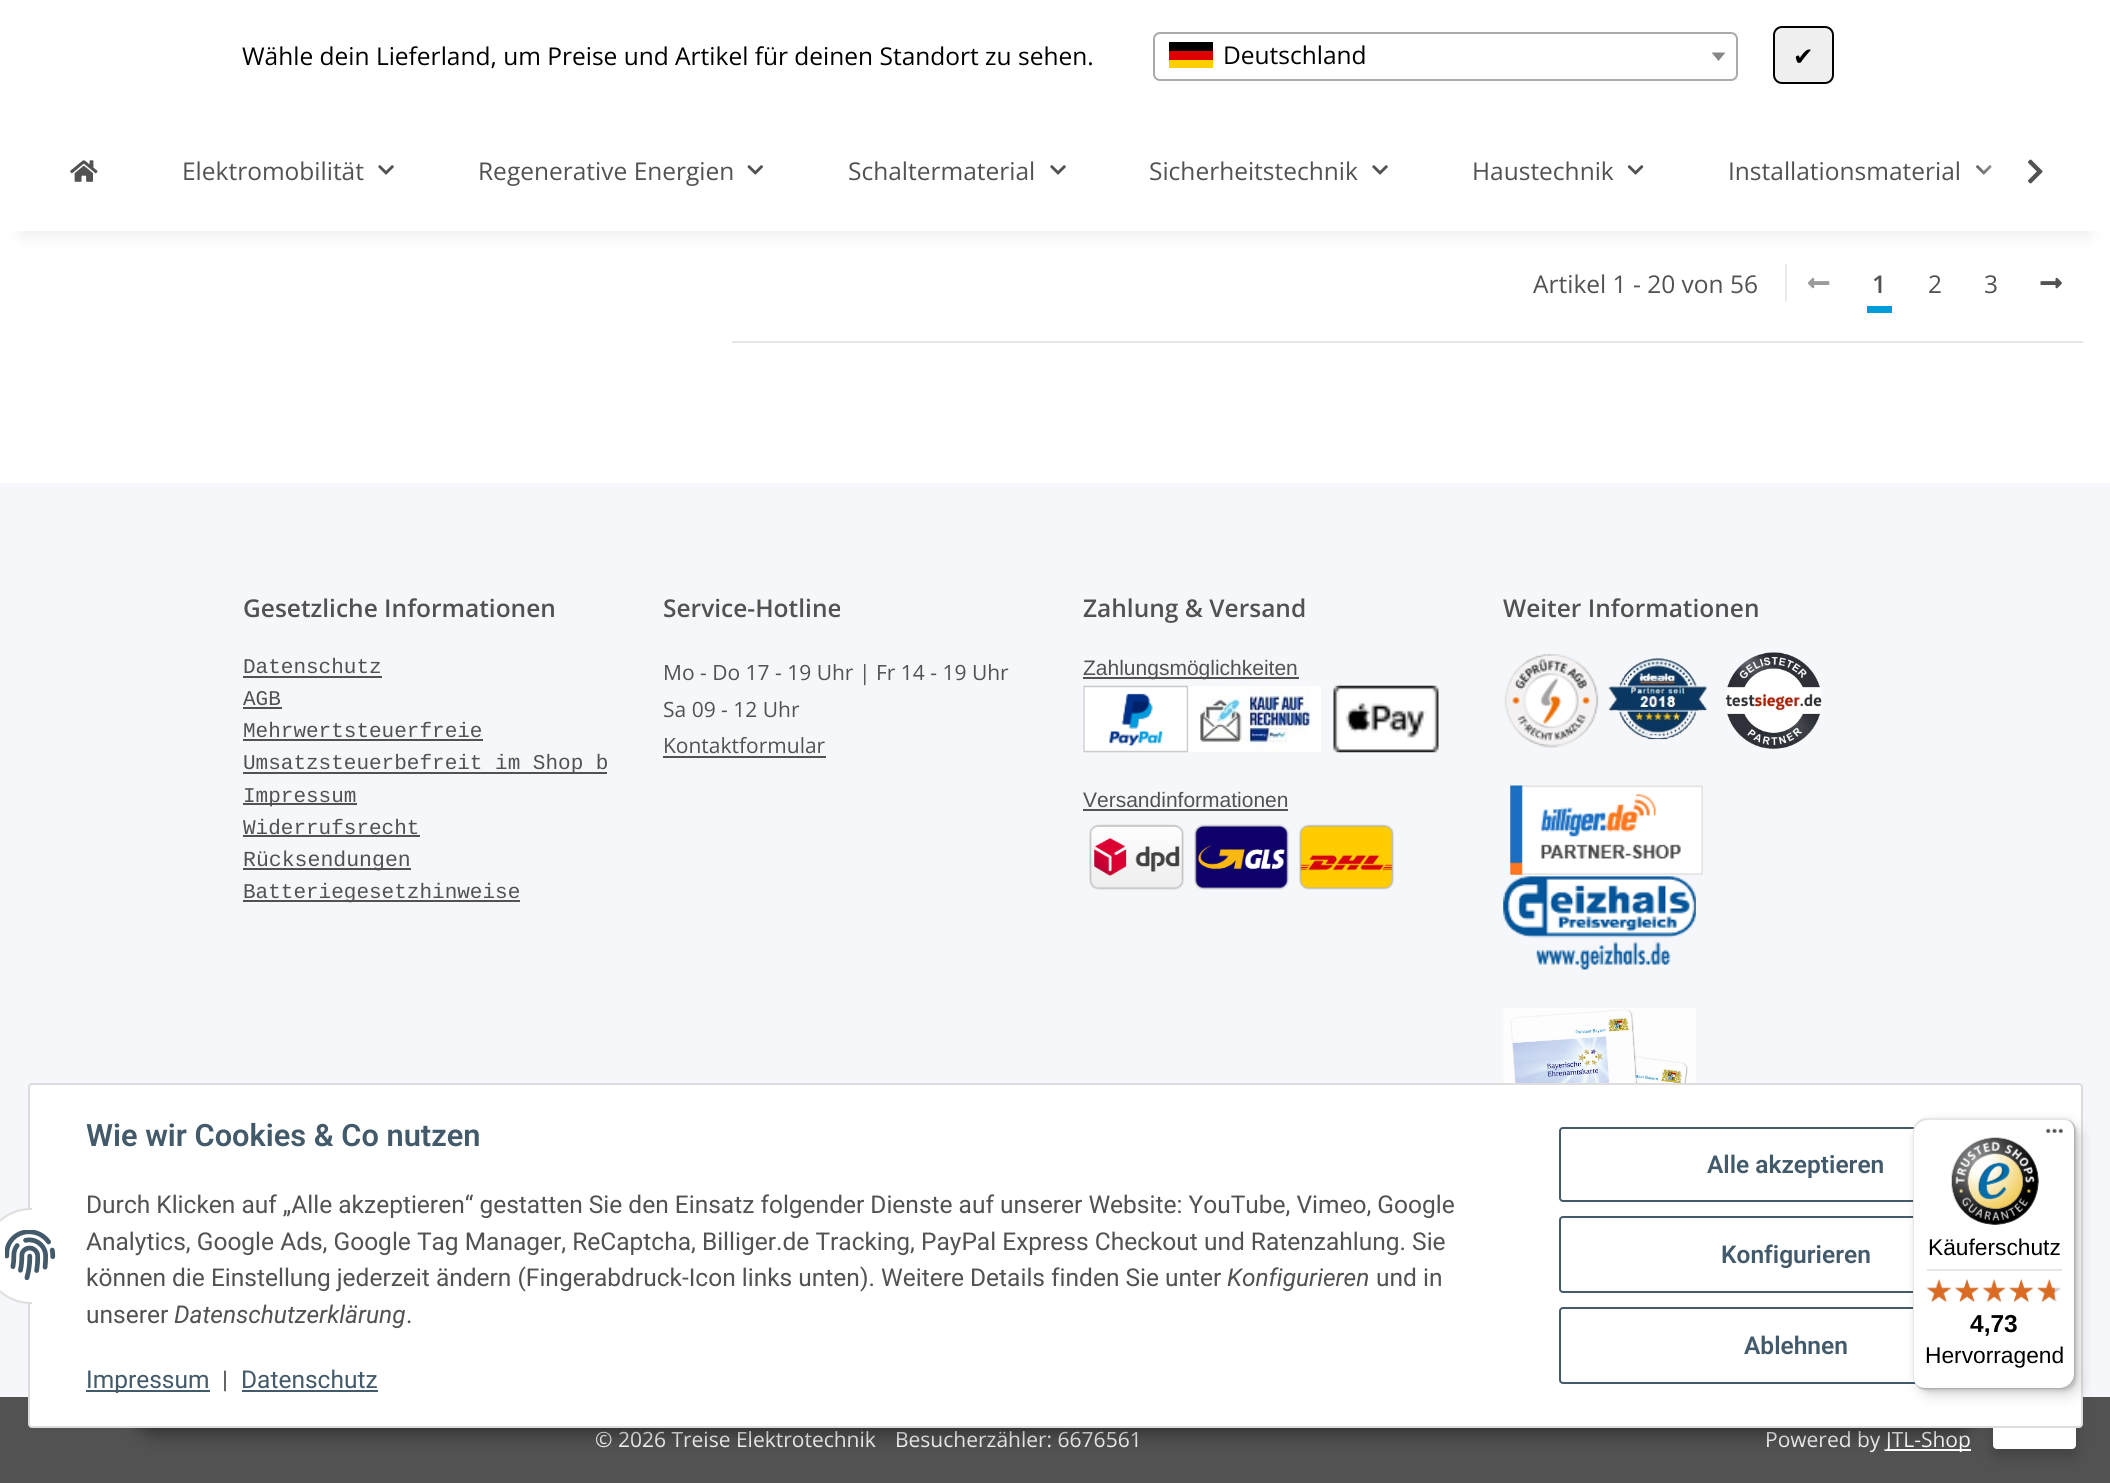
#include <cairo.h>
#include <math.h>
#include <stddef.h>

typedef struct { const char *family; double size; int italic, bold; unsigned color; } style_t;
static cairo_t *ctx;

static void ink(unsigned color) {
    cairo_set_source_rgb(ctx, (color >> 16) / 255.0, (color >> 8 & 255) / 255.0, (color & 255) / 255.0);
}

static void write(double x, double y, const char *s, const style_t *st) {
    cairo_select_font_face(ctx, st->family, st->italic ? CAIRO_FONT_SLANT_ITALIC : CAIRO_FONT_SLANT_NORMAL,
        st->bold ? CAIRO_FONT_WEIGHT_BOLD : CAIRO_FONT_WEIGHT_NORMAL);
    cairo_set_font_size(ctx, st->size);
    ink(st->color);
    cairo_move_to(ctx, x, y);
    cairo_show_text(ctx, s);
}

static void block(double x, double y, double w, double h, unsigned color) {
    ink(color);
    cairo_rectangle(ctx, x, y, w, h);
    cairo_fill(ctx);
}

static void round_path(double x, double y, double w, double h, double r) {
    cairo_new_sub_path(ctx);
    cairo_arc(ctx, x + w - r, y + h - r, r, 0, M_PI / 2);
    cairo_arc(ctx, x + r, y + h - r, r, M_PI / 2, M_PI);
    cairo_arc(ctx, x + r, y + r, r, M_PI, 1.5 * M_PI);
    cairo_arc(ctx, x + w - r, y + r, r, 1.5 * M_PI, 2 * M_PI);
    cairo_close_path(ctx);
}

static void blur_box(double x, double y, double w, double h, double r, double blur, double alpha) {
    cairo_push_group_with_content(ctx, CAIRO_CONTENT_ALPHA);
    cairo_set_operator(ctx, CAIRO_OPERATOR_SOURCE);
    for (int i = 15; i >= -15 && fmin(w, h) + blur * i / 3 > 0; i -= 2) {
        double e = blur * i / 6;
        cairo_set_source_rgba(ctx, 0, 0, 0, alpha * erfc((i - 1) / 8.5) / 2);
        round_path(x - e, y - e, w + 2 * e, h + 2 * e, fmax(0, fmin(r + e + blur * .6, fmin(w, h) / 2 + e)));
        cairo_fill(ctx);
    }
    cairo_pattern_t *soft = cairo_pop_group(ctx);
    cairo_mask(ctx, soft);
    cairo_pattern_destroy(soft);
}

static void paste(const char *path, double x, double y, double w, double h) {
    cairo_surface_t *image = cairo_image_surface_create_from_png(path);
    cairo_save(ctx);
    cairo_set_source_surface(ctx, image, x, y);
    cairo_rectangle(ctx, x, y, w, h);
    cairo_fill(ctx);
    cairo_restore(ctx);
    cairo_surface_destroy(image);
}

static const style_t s1 = {"Open Sans", 24.5, 0, 0, 0x000000};
static const style_t s2 = {"DejaVu Sans", 24.5, 0, 0, 0x000000};
static const style_t s3 = {"Open Sans", 24.5, 0, 0, 0x525252};
static const style_t s4 = {"Open Sans SemiBold", 24.5, 0, 0, 0x525252};
static const style_t s5 = {"Liberation Mono", 21, 0, 0, 0x525252};
static const style_t s6 = {"Liberation Mono", 21.5, 0, 0, 0x525252};
static const style_t s7 = {"Open Sans", 21, 0, 0, 0x525252};
static const style_t s8 = {"Liberation Sans", 21, 0, 0, 0x525252};
static const style_t s9 = {"Open Sans", 21, 0, 0, 0xf5f7fa};
static const style_t s10 = {"Open Sans", 21, 0, 0, 0xffffff};
static const style_t s11 = {"Roboto SemiBold", 30.75, 0, 0, 0x435a6b};
static const style_t s12 = {"Roboto", 24.5, 0, 0, 0x525252};
static const style_t s13 = {"Roboto", 24.5, 1, 0, 0x525252};
static const style_t s14 = {"Roboto", 24.5, 0, 0, 0x435a6b};
static const style_t s15 = {"Roboto SemiBold", 24.5, 0, 0, 0x435a6b};
static const style_t s16 = {"Liberation Sans", 22.75, 0, 0, 0x000000};
static const style_t s17 = {"Liberation Sans", 24.5, 0, 1, 0x000000};

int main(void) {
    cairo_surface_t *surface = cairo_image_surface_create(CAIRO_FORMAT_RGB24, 2110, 1483);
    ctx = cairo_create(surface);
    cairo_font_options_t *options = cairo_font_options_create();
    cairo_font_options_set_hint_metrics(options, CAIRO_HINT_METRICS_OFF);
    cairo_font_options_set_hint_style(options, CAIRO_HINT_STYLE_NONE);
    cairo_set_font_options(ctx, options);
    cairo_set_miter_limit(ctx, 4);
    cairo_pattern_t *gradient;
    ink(0xf5f7fa);
    cairo_paint(ctx);
    block(0, 231, 2110, 252, 0xffffff);
    ink(0x000000);
    blur_box(21, 49, 2069, 189, 0, 8, 0.06);
    block(0, 0, 2110, 231, 0xffffff);
    write(242, 65, "Wähle dein Lieferland, um Preise und Artikel für deinen Standort zu sehen.", &s1);
    round_path(1154, 33, 583, 47, 6);
    ink(0xaaaaaa);
    cairo_stroke(ctx);
    block(1169, 42, 44, 9, 0x000000);
    block(1169, 51, 44, 9, 0xdd0000);
    block(1169, 60, 44, 8, 0xffce00);
    write(1223, 64, "Deutschland", &s1);
    ink(0x888888);
    cairo_new_path(ctx);
    cairo_move_to(ctx, 1711.5, 52.5);
    cairo_line_to(ctx, 1725.5, 52.5);
    cairo_line_to(ctx, 1718.5, 61);
    cairo_close_path(ctx);
    cairo_fill(ctx);
    ink(0xefefef);
    round_path(1774, 27, 59, 56, 8);
    cairo_fill_preserve(ctx);
    ink(0x000000);
    cairo_stroke(ctx);
    write(1793, 65, "✔", &s2);
    paste("pic1.png", 70, 160, 28, 22);
    write(182, 180, "Elektromobilität", &s3);
    paste("pic2.png", 378, 165, 16, 10);
    write(478, 180, "Regenerative Energien", &s3);
    paste("pic3.png", 747, 165, 17, 10);
    write(848, 180, "Schaltermaterial", &s3);
    paste("pic2.png", 1050, 165, 16, 10);
    write(1149, 180, "Sicherheitstechnik", &s3);
    paste("pic2.png", 1372, 165, 16, 10);
    write(1472, 180, "Haustechnik", &s3);
    paste("pic4.png", 1627, 165, 17, 10);
    write(1728, 180, "Installationsmaterial", &s3);
    paste("pic5.png", 1976, 165, 16, 10);
    gradient = cairo_pattern_create_linear(1971, 172, 2055, 172);
    cairo_pattern_add_color_stop_rgba(gradient, 0, 1, 1, 1, 0.01);
    cairo_pattern_add_color_stop_rgba(gradient, 0.7, 1, 1, 1, 1);
    cairo_set_source(ctx, gradient);
    cairo_pattern_destroy(gradient);
    cairo_rectangle(ctx, 1976, 165, 16, 10);
    cairo_fill(ctx);
    paste("pic6.png", 2028, 159, 15, 25);
    block(1785, 264, 2, 37, 0xebebeb);
    write(1533, 293, "Artikel 1 - 20 von 56", &s3);
    paste("pic7.png", 1807, 277, 23, 12);
    write(1872, 293, "1", &s4);
    block(1867, 306, 25, 7, 0x009cd7);
    write(1928, 293, "2", &s3);
    write(1984, 293, "3", &s3);
    paste("pic8.png", 2040, 277, 22, 12);
    block(732, 341, 1351, 2, 0xe6e6e6);
    write(243, 617, "Gesetzliche Informationen", &s4);
    write(243, 673, "Datenschutz", &s5);
    block(243, 676, 139, 2, 0x525252);
    write(243, 705, "AGB", &s5);
    block(243, 707, 39, 2, 0x525252);
    write(243, 737, "Mehrwertsteuerfreie", &s5);
    block(243, 739, 240, 2, 0x525252);
    block(243, 772, 364, 2, 0x525252);
    cairo_save(ctx);
    cairo_rectangle(ctx, 243, 653, 364, 257);
    cairo_clip(ctx);
    write(243, 769, "Umsatzsteuerbefreit im Shop b", &s5);
    cairo_restore(ctx);
    block(243, 803, 114, 2, 0x525252);
    write(243, 802, "Impressum", &s5);
    write(243, 834, "Widerrufsrecht", &s5);
    block(243, 835, 177, 2, 0x525252);
    block(243, 868, 168, 2, 0x525252);
    write(243, 866, "Rücksendungen", &s6);
    block(243, 900, 277, 2, 0x525252);
    write(243, 898, "Batteriegesetzhinweise", &s5);
    write(663, 617, "Service-Hotline", &s4);
    write(663, 680, "Mo - Do 17 - 19 Uhr | Fr 14 - 19 Uhr", &s7);
    write(663, 717, "Sa 09 - 12 Uhr", &s7);
    write(663, 753, "Kontaktformular", &s7);
    block(663, 756, 163, 2, 0x525252);
    write(1083, 617, "Zahlung & Versand", &s4);
    block(1083, 677, 216, 2, 0x525252);
    write(1083, 675, "Zahlungsmöglichkeiten", &s8);
    paste("pic9.png", 1083, 685, 106, 68);
    paste("pic10.png", 1188, 686, 133, 66);
    paste("pic11.png", 1333, 685, 106, 68);
    write(1083, 807, "Versandinformationen", &s8);
    block(1083, 809, 205, 2, 0x525252);
    paste("pic12.png", 1089, 824, 95, 66);
    paste("pic13.png", 1194, 824, 95, 66);
    paste("pic14.png", 1299, 824, 95, 66);
    write(1503, 617, "Weiter Informationen", &s4);
    paste("pic15.png", 1504, 654, 95, 94);
    paste("pic16.png", 1608, 658, 99, 82);
    paste("pic17.png", 1725, 652, 97, 97);
    paste("pic18.png", 1510, 785, 193, 90);
    paste("pic19.png", 1503, 876, 193, 94);
    paste("pic20.png", 1503, 1008, 193, 75);
    block(0, 1397, 2110, 86, 0x525252);
    write(595, 1447, "© 2026 Treise Elektrotechnik", &s9);
    write(895, 1447, "Besucherzähler: 6676561", &s9);
    write(1765, 1447, "Powered by", &s9);
    block(1887, 1449, 84, 2, 0xffffff);
    write(1886, 1447, "JTL-Shop", &s10);
    ink(0x000000);
    blur_box(1993, 1379, 83, 77, 4, 7, 0.2);
    ink(0xffffff);
    round_path(1993, 1372, 83, 77, 4);
    cairo_fill(ctx);
    ink(0x000000);
    blur_box(133, 1377, 1845, 56, 28, 9, 0.45);
    ink(0xffffff);
    round_path(29, 1084, 2053, 343, 3);
    cairo_fill_preserve(ctx);
    ink(0xdddddd);
    cairo_stroke(ctx);
    ink(0xffffff);
    cairo_arc(ctx, 31, 1256, 47, 0, 2 * M_PI);
    cairo_fill_preserve(ctx);
    ink(0xdddddd);
    cairo_stroke(ctx);
    block(32, 1208, 47, 96, 0xffffff);
    paste("pic21.png", 5, 1230, 51, 51);
    write(86, 1146, "Wie wir Cookies & Co nutzen", &s11);
    write(86, 1213, "Durch Klicken auf „Alle akzeptieren“ gestatten Sie den Einsatz folgender Dienste auf unserer Website: YouTube, Vimeo, Google", &s12);
    write(86, 1250, "Analytics, Google Ads, Google Tag Manager, ReCaptcha, Billiger.de Tracking, PayPal Express Checkout und Ratenzahlung. Sie", &s12);
    write(86, 1286, "können die Einstellung jederzeit ändern (Fingerabdruck-Icon links unten). Weitere Details finden Sie unter", &s12);
    write(1227, 1286, "Konfigurieren", &s13);
    write(1376, 1286, "und in", &s12);
    write(86, 1323, "unserer", &s12);
    write(174, 1323, "Datenschutzerklärung", &s13);
    write(406, 1323, ".", &s12);
    block(86, 1390, 124, 2, 0x435a6b);
    write(86, 1388, "Impressum", &s14);
    write(222, 1388, "|", &s12);
    write(241, 1388, "Datenschutz", &s14);
    block(242, 1390, 136, 2, 0x435a6b);
    round_path(1560, 1128, 471, 73, 3);
    cairo_stroke(ctx);
    write(1707, 1173, "Alle akzeptieren", &s15);
    round_path(1560, 1217, 471, 75, 3);
    cairo_stroke(ctx);
    write(1721, 1263, "Konfigurieren", &s15);
    round_path(1560, 1308, 471, 75, 3);
    cairo_stroke(ctx);
    write(1744, 1354, "Ablehnen", &s15);
    ink(0x000000);
    blur_box(1918, 1124, 163, 271, 14, 7, 0.15);
    blur_box(1915, 1120, 162, 271, 14, 2, 0.15);
    ink(0xffffff);
    round_path(1913, 1118, 163, 272, 14);
    cairo_fill(ctx);
    cairo_set_source_rgba(ctx, 0, 0, 0, 0.1);
    cairo_new_path(ctx);
    cairo_move_to(ctx, 1928, 1120);
    cairo_line_to(ctx, 2063, 1120);
    cairo_curve_to(ctx, 2068, 1120, 2072, 1122, 2075, 1126);
    cairo_curve_to(ctx, 2072, 1121, 2068, 1118, 2062, 1118);
    cairo_line_to(ctx, 1927, 1118);
    cairo_curve_to(ctx, 1919, 1118, 1913, 1124, 1913, 1132);
    cairo_line_to(ctx, 1913, 1376);
    cairo_curve_to(ctx, 1913, 1381, 1915, 1385, 1919, 1387);
    cairo_curve_to(ctx, 1916, 1385, 1914, 1381, 1914, 1377);
    cairo_line_to(ctx, 1914, 1134);
    cairo_curve_to(ctx, 1914, 1126, 1921, 1120, 1928, 1120);
    cairo_close_path(ctx);
    cairo_fill(ctx);
    cairo_set_source_rgba(ctx, 0, 0, 0, 0.2);
    cairo_new_path(ctx);
    cairo_move_to(ctx, 1916, 1384);
    cairo_curve_to(ctx, 1918, 1388, 1922, 1390, 1927, 1390);
    cairo_line_to(ctx, 2062, 1390);
    cairo_curve_to(ctx, 2070, 1390, 2076, 1384, 2076, 1376);
    cairo_line_to(ctx, 2076, 1132);
    cairo_curve_to(ctx, 2076, 1127, 2073, 1122, 2069, 1120);
    cairo_curve_to(ctx, 2072, 1123, 2074, 1126, 2074, 1130);
    cairo_line_to(ctx, 2074, 1374);
    cairo_curve_to(ctx, 2074, 1381, 2067, 1388, 2060, 1388);
    cairo_line_to(ctx, 1925, 1388);
    cairo_curve_to(ctx, 1921, 1388, 1918, 1387, 1916, 1384);
    cairo_close_path(ctx);
    cairo_fill(ctx);
    cairo_set_source_rgba(ctx, 0.196, 0.196, 0.196, 0.2);
    cairo_new_path(ctx);
    cairo_move_to(ctx, 1914, 1382);
    cairo_curve_to(ctx, 1917, 1387, 1921, 1390, 1927, 1390);
    cairo_line_to(ctx, 2062, 1390);
    cairo_curve_to(ctx, 2070, 1390, 2076, 1384, 2076, 1376);
    cairo_line_to(ctx, 2076, 1132);
    cairo_curve_to(ctx, 2076, 1126, 2073, 1122, 2068, 1119);
    cairo_curve_to(ctx, 2072, 1122, 2074, 1126, 2074, 1131);
    cairo_line_to(ctx, 2074, 1374);
    cairo_curve_to(ctx, 2074, 1382, 2068, 1388, 2060, 1388);
    cairo_line_to(ctx, 1926, 1388);
    cairo_curve_to(ctx, 1921, 1388, 1917, 1386, 1914, 1382);
    cairo_close_path(ctx);
    cairo_fill(ctx);
    cairo_set_source_rgba(ctx, 1, 1, 1, 0.3);
    cairo_new_path(ctx);
    cairo_move_to(ctx, 1916, 1384);
    cairo_curve_to(ctx, 1918, 1388, 1922, 1390, 1927, 1390);
    cairo_line_to(ctx, 2062, 1390);
    cairo_curve_to(ctx, 2070, 1390, 2076, 1384, 2076, 1376);
    cairo_line_to(ctx, 2076, 1132);
    cairo_curve_to(ctx, 2076, 1127, 2073, 1122, 2069, 1120);
    cairo_curve_to(ctx, 2072, 1122, 2075, 1127, 2075, 1131);
    cairo_line_to(ctx, 2075, 1375);
    cairo_curve_to(ctx, 2075, 1382, 2068, 1389, 2061, 1389);
    cairo_line_to(ctx, 1926, 1389);
    cairo_curve_to(ctx, 1922, 1389, 1918, 1387, 1916, 1384);
    cairo_close_path(ctx);
    cairo_fill(ctx);
    paste("pic22.png", 2045, 1128, 18, 5);
    paste("pic23.png", 1951, 1137, 88, 88);
    write(1928, 1255, "Käuferschutz", &s16);
    block(1927, 1269, 135, 2, 0xe5e5e5);
    paste("pic24.png", 1926, 1279, 25, 23);
    paste("pic25.png", 1955, 1279, 24, 23);
    paste("pic26.png", 1983, 1279, 23, 23);
    paste("pic27.png", 2009, 1279, 24, 23);
    paste("pic28.png", 2037, 1279, 24, 23);
    paste("pic29.png", 1926, 1279, 25, 23);
    paste("pic30.png", 1955, 1279, 24, 23);
    paste("pic31.png", 1982, 1279, 24, 23);
    paste("pic32.png", 2009, 1279, 24, 23);
    paste("pic33.png", 2037, 1279, 18, 23);
    write(1970, 1332, "4,73", &s17);
    write(1925, 1363, "Hervorragend", &s16);
    cairo_surface_write_to_png(surface, "screenshot.png");
    cairo_font_options_destroy(options);
    cairo_destroy(ctx);
    cairo_surface_destroy(surface);
    return 0;
}
